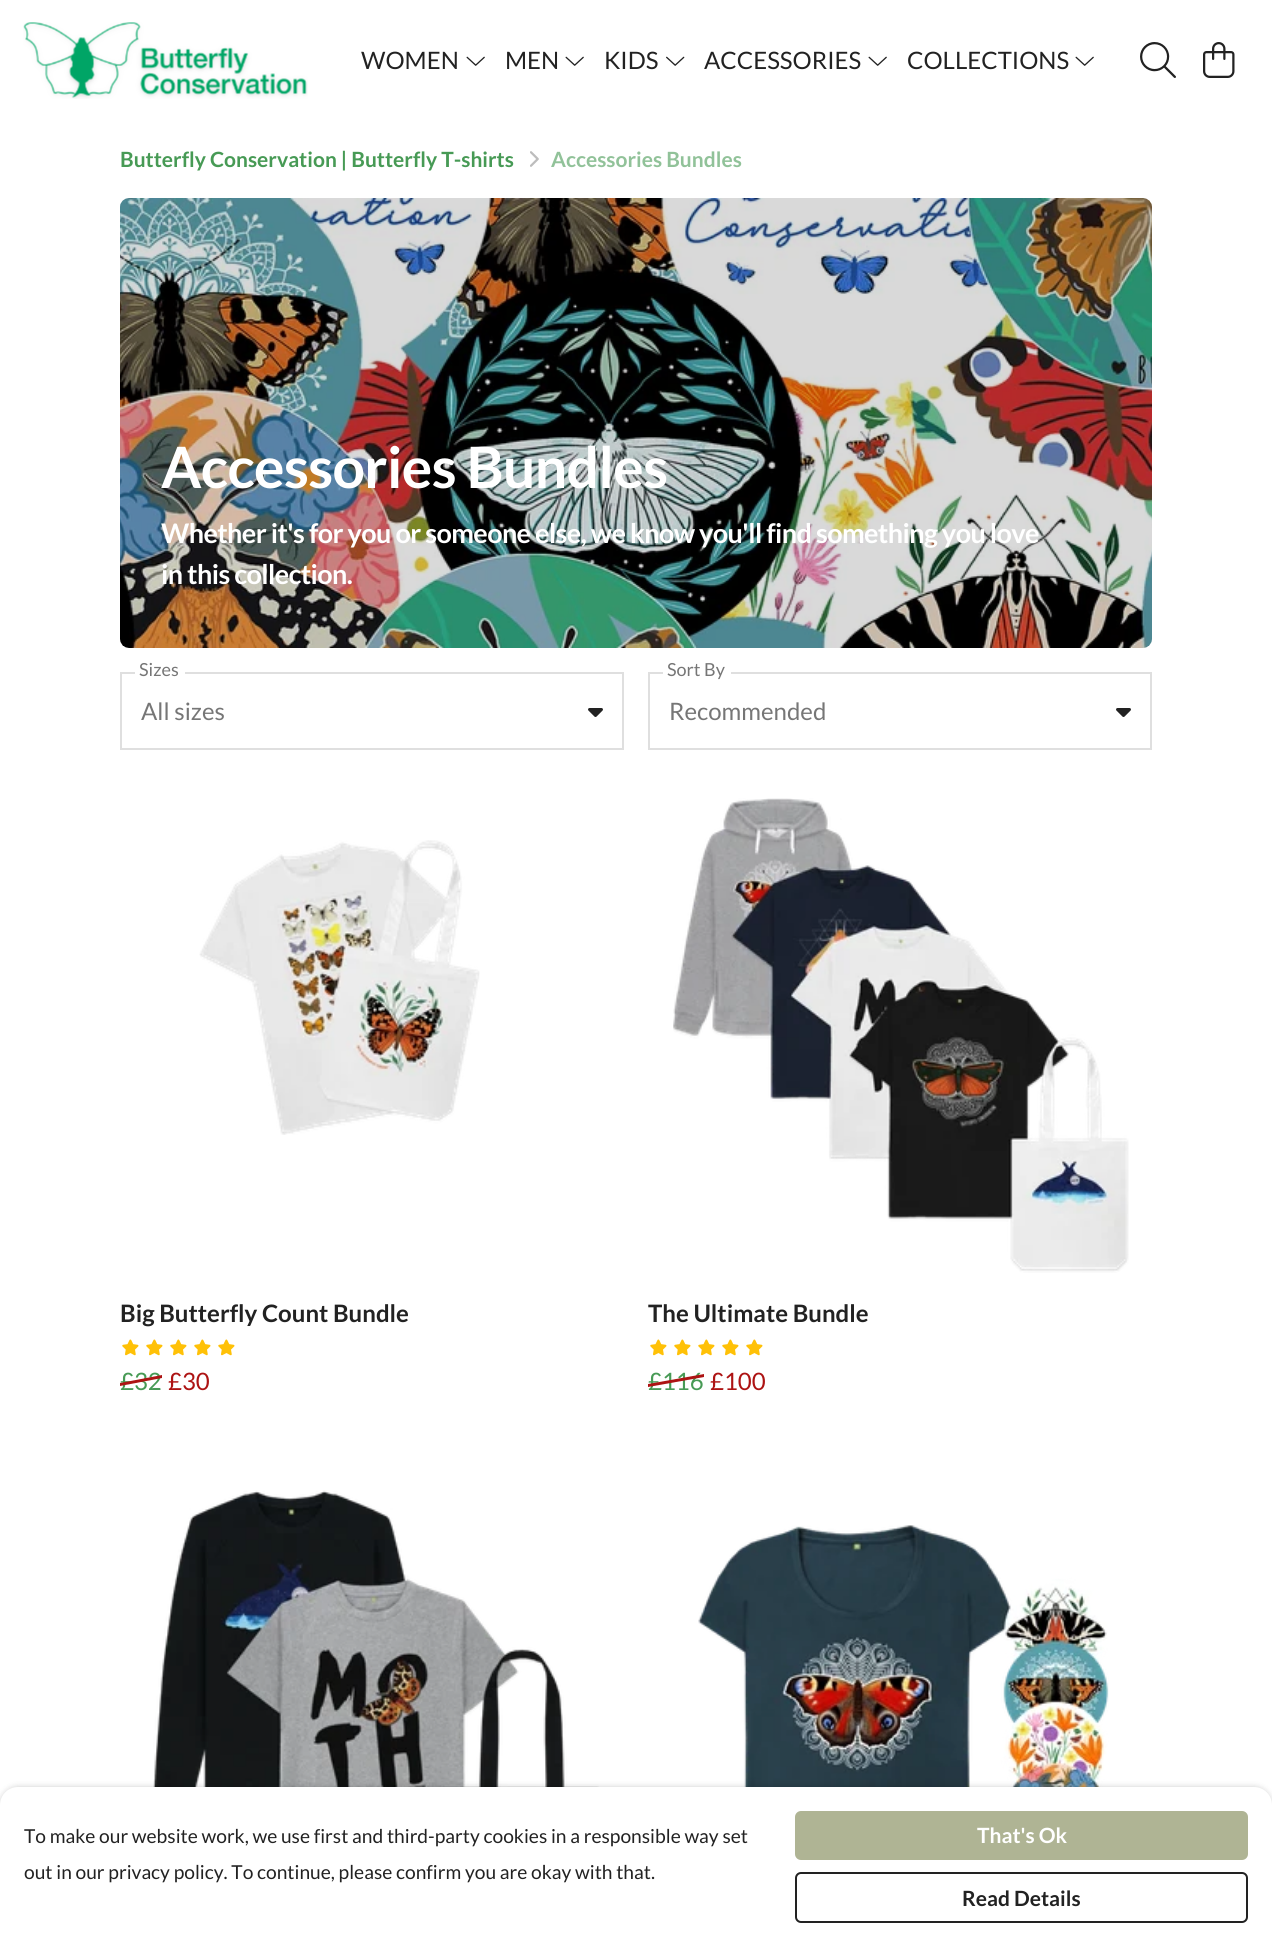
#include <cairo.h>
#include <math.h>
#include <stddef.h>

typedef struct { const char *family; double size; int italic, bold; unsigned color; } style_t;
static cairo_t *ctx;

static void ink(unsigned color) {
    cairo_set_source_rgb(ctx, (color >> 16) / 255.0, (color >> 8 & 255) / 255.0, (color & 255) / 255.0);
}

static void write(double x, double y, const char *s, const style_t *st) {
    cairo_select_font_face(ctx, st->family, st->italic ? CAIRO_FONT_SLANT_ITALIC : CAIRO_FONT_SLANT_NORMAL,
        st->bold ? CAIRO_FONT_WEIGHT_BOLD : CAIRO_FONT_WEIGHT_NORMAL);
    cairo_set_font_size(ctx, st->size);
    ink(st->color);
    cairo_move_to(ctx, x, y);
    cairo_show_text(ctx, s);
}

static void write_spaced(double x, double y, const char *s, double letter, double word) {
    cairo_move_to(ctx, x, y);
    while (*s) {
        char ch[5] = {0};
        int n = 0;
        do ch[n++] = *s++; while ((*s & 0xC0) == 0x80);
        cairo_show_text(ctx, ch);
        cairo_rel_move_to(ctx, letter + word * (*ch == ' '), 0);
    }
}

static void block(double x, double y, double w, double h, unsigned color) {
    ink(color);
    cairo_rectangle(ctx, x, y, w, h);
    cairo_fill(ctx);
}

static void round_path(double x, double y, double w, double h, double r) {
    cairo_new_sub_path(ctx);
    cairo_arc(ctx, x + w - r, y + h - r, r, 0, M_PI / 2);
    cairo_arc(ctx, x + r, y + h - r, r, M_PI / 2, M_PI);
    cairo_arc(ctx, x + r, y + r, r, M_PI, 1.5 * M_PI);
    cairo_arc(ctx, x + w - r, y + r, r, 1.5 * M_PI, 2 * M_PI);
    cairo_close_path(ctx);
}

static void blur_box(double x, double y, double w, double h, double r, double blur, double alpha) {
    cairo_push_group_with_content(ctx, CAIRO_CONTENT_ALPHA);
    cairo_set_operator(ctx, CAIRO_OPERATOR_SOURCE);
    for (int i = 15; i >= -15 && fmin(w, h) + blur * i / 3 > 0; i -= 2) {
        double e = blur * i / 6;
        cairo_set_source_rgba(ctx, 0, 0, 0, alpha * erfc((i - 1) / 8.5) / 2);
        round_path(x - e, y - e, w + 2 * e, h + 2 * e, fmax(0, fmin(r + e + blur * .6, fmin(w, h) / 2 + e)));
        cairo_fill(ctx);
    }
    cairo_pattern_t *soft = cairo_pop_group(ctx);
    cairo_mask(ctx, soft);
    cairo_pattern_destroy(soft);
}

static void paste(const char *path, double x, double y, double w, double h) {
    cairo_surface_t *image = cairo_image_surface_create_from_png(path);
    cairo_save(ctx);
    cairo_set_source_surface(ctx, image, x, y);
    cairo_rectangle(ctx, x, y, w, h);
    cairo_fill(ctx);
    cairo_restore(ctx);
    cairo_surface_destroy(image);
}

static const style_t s1 = {"Lato", 24, 0, 0, 0x222222};
static const style_t s2 = {"Lato", 21, 0, 1, 0x479a55};
static const style_t s3 = {"Lato", 21, 0, 1, 0x91c299};
static const style_t s4 = {"Lato", 18, 0, 0, 0x767676};
static const style_t s5 = {"Lato", 24, 0, 0, 0x767676};
static const style_t s6 = {"Lato", 24, 0, 1, 0x222222};
static const style_t s7 = {"Lato", 24, 0, 0, 0x479a55};
static const style_t s8 = {"Lato", 24, 0, 0, 0xad1313};
static const style_t s9 = {"Lato", 19.2, 0, 0, 0x222222};
static const style_t s10 = {"Lato", 21, 0, 1, 0xffffff};
static const style_t s11 = {"Lato", 21, 0, 1, 0x222222};

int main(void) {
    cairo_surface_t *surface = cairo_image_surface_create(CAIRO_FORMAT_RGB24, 1272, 1946);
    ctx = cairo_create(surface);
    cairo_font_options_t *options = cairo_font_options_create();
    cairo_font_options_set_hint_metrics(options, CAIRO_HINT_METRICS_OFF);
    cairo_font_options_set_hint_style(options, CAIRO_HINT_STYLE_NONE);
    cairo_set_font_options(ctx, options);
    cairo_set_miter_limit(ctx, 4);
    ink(0xffffff);
    cairo_paint(ctx);
    paste("pic1.png", 23, 22, 285, 77);
    write(361, 69, "WOMEN", &s1);
    paste("pic2.png", 466, 56, 19, 10);
    write(505, 69, "MEN", &s1);
    paste("pic2.png", 565, 56, 19, 10);
    write(604, 69, "KIDS", &s1);
    paste("pic3.png", 666, 56, 19, 10);
    write(704, 69, "ACCESSORIES", &s1);
    paste("pic2.png", 868, 56, 19, 10);
    write(907, 69, "COLLECTIONS", &s1);
    paste("pic2.png", 1075, 56, 19, 10);
    paste("pic4.png", 1140, 42, 36, 36);
    paste("pic5.png", 1203, 42, 32, 36);
    write(120, 167, "Butterfly Conservation | Butterfly T-shirts", &s2);
    paste("pic6.png", 530, 151, 9, 16);
    write(551, 167, "Accessories Bundles", &s3);
    paste("pic7.png", 120, 198, 1032, 450);
    cairo_set_source_rgba(ctx, 0, 0, 0, 0.15);
    round_path(120, 198, 1032, 450, 9);
    cairo_fill(ctx);
    cairo_set_font_size(ctx, 57);
    ink(0xffffff);
    write_spaced(161, 488, "Accessories Bundles", -0.6, 0);
    cairo_set_font_size(ctx, 27);
    write_spaced(161, 543, "Whether it's for you or someone else, we know you'll find something you love", -0.6, 0);
    write_spaced(161, 584, "in this collection.", -0.6, 0);
    cairo_rectangle(ctx, 121, 673, 502, 76);
    ink(0xdfdfdf);
    cairo_stroke(ctx);
    block(135, 672, 50, 2, 0xffffff);
    write(139, 676, "Sizes", &s4);
    write(141, 720, "All sizes", &s5);
    paste("pic8.png", 588, 708, 15, 9);
    cairo_rectangle(ctx, 649, 673, 502, 76);
    ink(0xdfdfdf);
    cairo_stroke(ctx);
    block(663, 672, 68, 2, 0xffffff);
    write(667, 676, "Sort By", &s4);
    write(669, 720, "Recommended", &s5);
    paste("pic8.png", 1116, 708, 15, 9);
    paste("pic9.png", 199, 840, 281, 295);
    write(120, 1322, "Big Butterfly Count Bundle", &s6);
    paste("pic10.png", 122, 1339, 17, 17);
    paste("pic10.png", 146, 1339, 17, 17);
    paste("pic10.png", 170, 1339, 17, 17);
    paste("pic10.png", 194, 1339, 17, 17);
    paste("pic10.png", 218, 1339, 17, 17);
    write(120, 1390, "£32", &s7);
    ink(0xad1313);
    cairo_new_path(ctx);
    cairo_move_to(ctx, 120, 1383);
    cairo_line_to(ctx, 162, 1375);
    cairo_line_to(ctx, 162, 1378);
    cairo_line_to(ctx, 120, 1386);
    cairo_close_path(ctx);
    cairo_fill(ctx);
    write(168, 1390, "£30", &s8);
    paste("pic11.png", 673, 798, 456, 475);
    write(648, 1322, "The Ultimate Bundle", &s6);
    paste("pic10.png", 650, 1339, 17, 17);
    paste("pic10.png", 674, 1339, 17, 17);
    paste("pic10.png", 698, 1339, 17, 17);
    paste("pic10.png", 722, 1339, 17, 17);
    paste("pic10.png", 746, 1339, 17, 17);
    write(648, 1390, "£116", &s7);
    ink(0xad1313);
    cairo_new_path(ctx);
    cairo_move_to(ctx, 648, 1384);
    cairo_line_to(ctx, 704, 1374);
    cairo_line_to(ctx, 704, 1377);
    cairo_line_to(ctx, 648, 1387);
    cairo_close_path(ctx);
    cairo_fill(ctx);
    write(710, 1390, "£100", &s8);
    paste("pic12.png", 153, 1490, 446, 297);
    paste("pic13.png", 698, 1525, 411, 262);
    ink(0x000000);
    blur_box(0, 1787, 1272, 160, 18, 3, 0.2);
    ink(0xffffff);
    cairo_new_path(ctx);
    cairo_move_to(ctx, 18, 1787);
    cairo_line_to(ctx, 1254, 1787);
    cairo_curve_to(ctx, 1264, 1787, 1272, 1795, 1272, 1805);
    cairo_line_to(ctx, 1272, 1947);
    cairo_line_to(ctx, 0, 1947);
    cairo_line_to(ctx, 0, 1805);
    cairo_curve_to(ctx, 0, 1795, 8, 1787, 18, 1787);
    cairo_close_path(ctx);
    cairo_fill(ctx);
    write(24, 1843, "To make our website work, we use first and third-party cookies in a responsible way set", &s9);
    write(24, 1879, "out in our privacy policy. To continue, please confirm you are okay with that.", &s9);
    ink(0xafb494);
    round_path(795, 1811, 453, 49, 6);
    cairo_fill(ctx);
    write(977, 1843, "That's Ok", &s10);
    round_path(796, 1873, 451, 49, 5);
    ink(0x222222);
    cairo_stroke(ctx);
    write(962, 1906, "Read Details", &s11);
    cairo_surface_write_to_png(surface, "screenshot.png");
    cairo_font_options_destroy(options);
    cairo_destroy(ctx);
    cairo_surface_destroy(surface);
    return 0;
}
